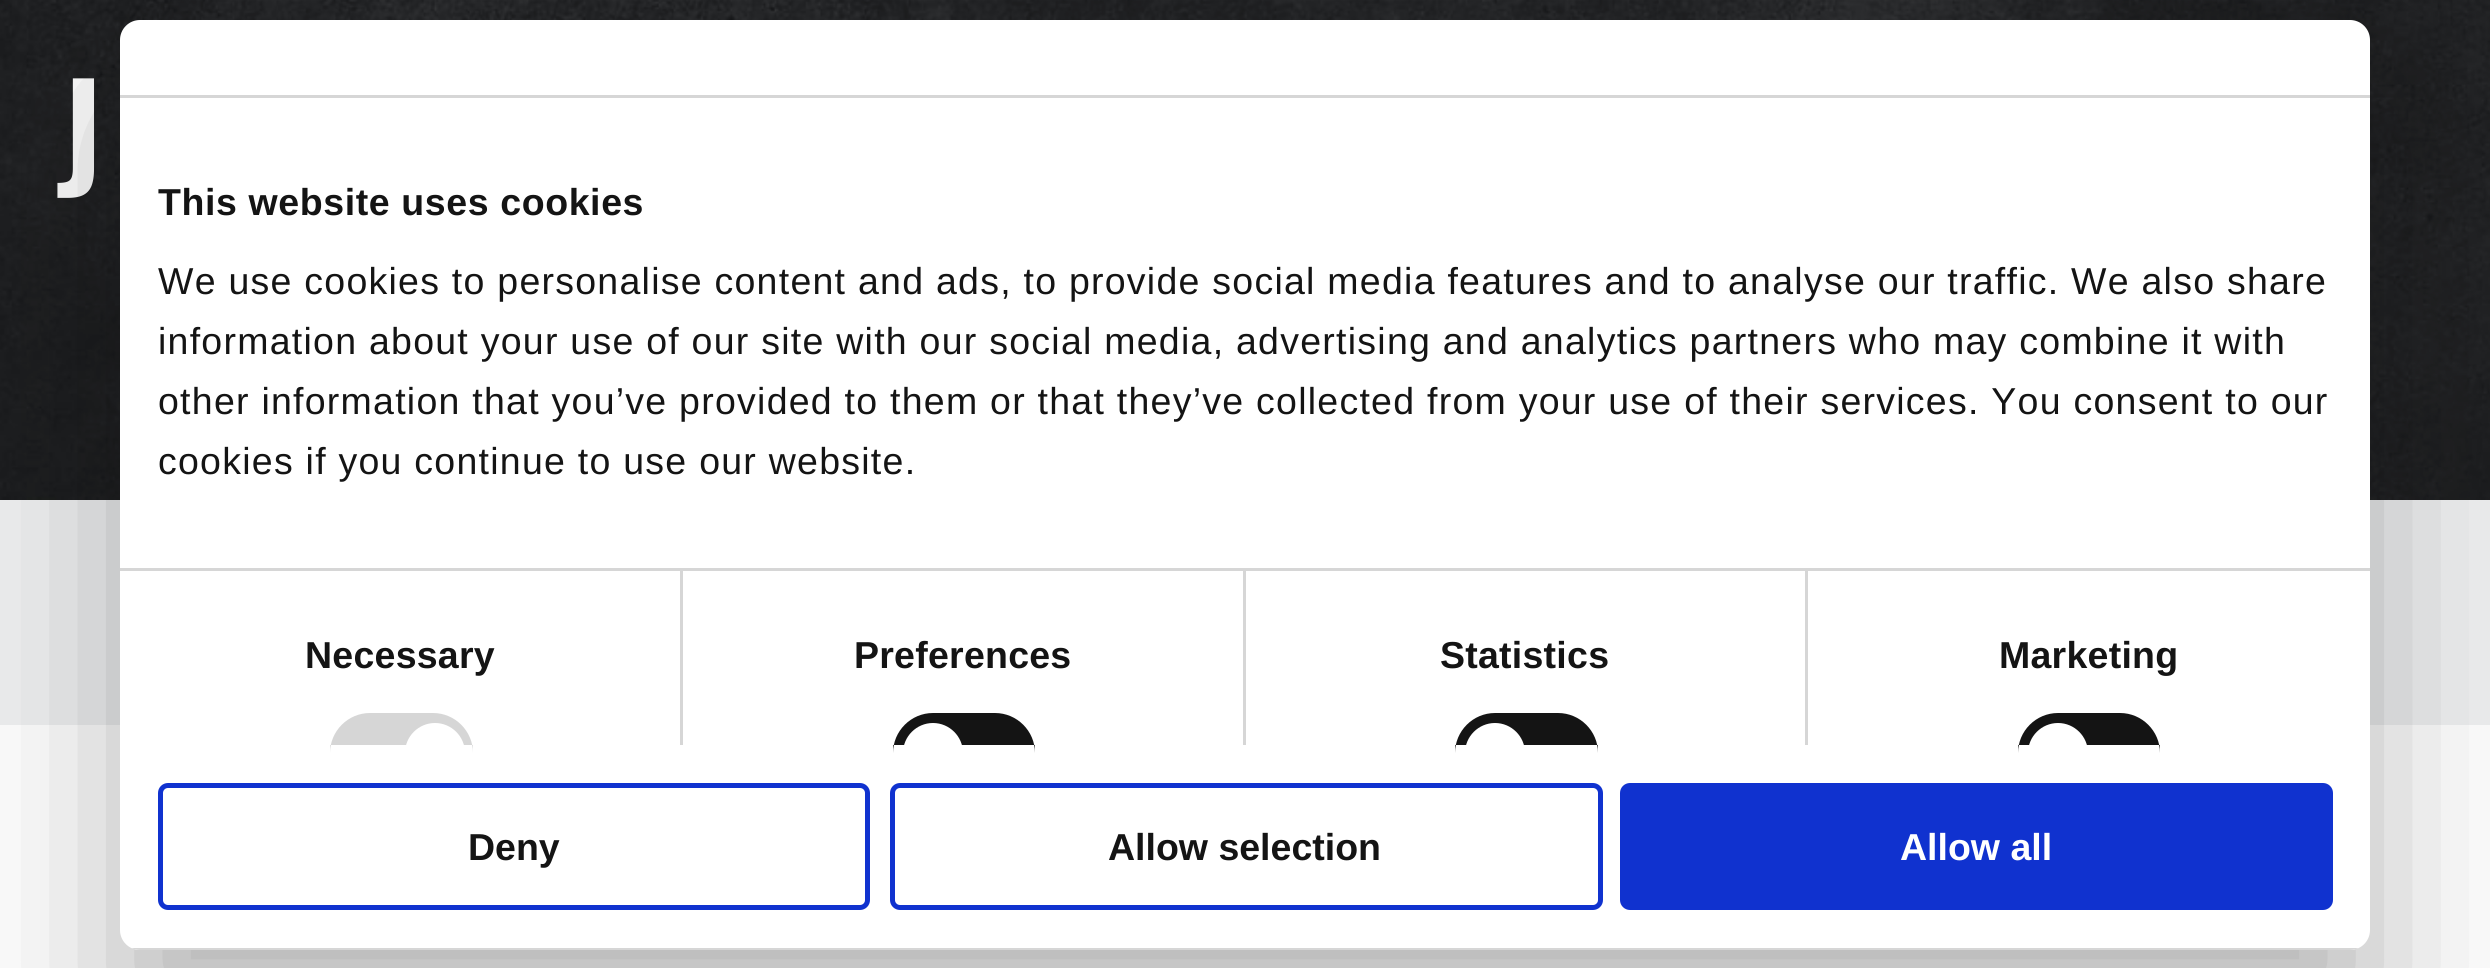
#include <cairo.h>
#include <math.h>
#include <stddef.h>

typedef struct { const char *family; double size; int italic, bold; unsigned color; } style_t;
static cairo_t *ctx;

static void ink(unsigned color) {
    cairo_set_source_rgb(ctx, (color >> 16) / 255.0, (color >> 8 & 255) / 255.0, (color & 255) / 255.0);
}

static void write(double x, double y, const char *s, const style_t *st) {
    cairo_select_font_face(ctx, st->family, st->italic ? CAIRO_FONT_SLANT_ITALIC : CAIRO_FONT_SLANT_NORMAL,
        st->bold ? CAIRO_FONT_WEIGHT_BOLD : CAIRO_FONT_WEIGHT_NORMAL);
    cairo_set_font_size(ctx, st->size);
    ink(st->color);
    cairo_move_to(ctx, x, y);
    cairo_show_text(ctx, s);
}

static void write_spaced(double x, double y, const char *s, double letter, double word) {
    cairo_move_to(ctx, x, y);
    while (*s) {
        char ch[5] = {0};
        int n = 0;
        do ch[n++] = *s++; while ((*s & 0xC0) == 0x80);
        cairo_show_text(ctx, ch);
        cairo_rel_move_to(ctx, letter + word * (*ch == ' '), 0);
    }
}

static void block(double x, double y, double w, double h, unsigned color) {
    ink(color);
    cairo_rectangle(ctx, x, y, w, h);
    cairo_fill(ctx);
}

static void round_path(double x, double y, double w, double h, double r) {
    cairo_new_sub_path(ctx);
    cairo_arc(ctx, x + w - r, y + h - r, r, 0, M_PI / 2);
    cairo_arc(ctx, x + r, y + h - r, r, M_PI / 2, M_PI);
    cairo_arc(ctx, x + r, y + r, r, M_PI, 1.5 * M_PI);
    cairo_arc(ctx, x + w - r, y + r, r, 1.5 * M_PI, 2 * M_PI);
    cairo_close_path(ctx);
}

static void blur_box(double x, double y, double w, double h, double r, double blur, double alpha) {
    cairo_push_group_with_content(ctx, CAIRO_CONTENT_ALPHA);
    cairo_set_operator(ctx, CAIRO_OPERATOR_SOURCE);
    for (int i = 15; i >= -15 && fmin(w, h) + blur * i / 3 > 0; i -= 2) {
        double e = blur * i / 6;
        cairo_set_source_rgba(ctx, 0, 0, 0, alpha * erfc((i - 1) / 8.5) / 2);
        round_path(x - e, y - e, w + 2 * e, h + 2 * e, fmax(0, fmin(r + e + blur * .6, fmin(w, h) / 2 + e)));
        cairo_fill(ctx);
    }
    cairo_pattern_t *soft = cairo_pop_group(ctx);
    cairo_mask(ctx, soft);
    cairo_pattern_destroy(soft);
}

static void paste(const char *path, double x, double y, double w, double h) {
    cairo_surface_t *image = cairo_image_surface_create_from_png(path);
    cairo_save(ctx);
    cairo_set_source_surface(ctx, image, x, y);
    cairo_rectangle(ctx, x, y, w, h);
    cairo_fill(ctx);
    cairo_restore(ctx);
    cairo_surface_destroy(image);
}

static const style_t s1 = {"Liberation Sans", 37.5, 0, 1, 0x141414};
static const style_t s2 = {"Liberation Sans", 37.5, 0, 1, 0xffffff};

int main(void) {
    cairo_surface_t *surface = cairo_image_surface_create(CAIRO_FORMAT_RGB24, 2490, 968);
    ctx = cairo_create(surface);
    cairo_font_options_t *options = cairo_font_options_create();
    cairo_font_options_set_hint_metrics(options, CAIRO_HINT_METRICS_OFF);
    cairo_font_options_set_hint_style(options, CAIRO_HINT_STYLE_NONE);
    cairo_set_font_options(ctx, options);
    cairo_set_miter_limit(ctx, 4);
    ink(0xeff0f1);
    cairo_paint(ctx);
    paste("pic1.png", 0, 0, 2490, 500);
    cairo_select_font_face(ctx, "Oswald Medium", CAIRO_FONT_SLANT_NORMAL, CAIRO_FONT_WEIGHT_NORMAL);
    cairo_set_font_size(ctx, 144);
    ink(0xffffff);
    write_spaced(56, 195, "J", 2, 0);
    block(0, 725, 2490, 243, 0xffffff);
    ink(0x000000);
    blur_box(120, 100, 2250, 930, 20, 85, 0.3);
    ink(0xffffff);
    round_path(120, 20, 2250, 930, 20);
    cairo_fill(ctx);
    block(120, 95, 2250, 3, 0xd6d6d6);
    block(680, 570, 3, 175, 0xd6d6d6);
    block(1243, 570, 3, 175, 0xd6d6d6);
    block(1805, 570, 3, 175, 0xd6d6d6);
    block(120, 568, 2250, 3, 0xd6d6d6);
    cairo_select_font_face(ctx, "Liberation Sans", CAIRO_FONT_SLANT_NORMAL, CAIRO_FONT_WEIGHT_BOLD);
    cairo_set_font_size(ctx, 37.5);
    ink(0x141414);
    write_spaced(158, 215, "This website uses cookies", 0.6, 0);
    cairo_select_font_face(ctx, "Liberation Sans", CAIRO_FONT_SLANT_NORMAL, CAIRO_FONT_WEIGHT_NORMAL);
    write_spaced(158, 294, "We use cookies to personalise content and ads, to provide social media features and to analyse our traffic. We also share", 1.25, 0);
    write_spaced(158, 354, "information about your use of our site with our social media, advertising and analytics partners who may combine it with", 1.25, 0);
    write_spaced(158, 414, "other information that you’ve provided to them or that they’ve collected from your use of their services. You consent to our", 1.25, 0);
    write_spaced(158, 474, "cookies if you continue to use our website.", 1.25, 0);
    cairo_select_font_face(ctx, "Liberation Sans", CAIRO_FONT_SLANT_NORMAL, CAIRO_FONT_WEIGHT_BOLD);
    write_spaced(305, 668, "Necessary", 0.25, 0);
    ink(0xd6d6d6);
    cairo_new_path(ctx);
    cairo_move_to(ctx, 370, 713);
    cairo_line_to(ctx, 433, 713);
    cairo_curve_to(ctx, 455, 713, 473, 731, 473, 753);
    cairo_line_to(ctx, 473, 745);
    cairo_line_to(ctx, 330, 745);
    cairo_line_to(ctx, 330, 753);
    cairo_curve_to(ctx, 330, 731, 348, 713, 370, 713);
    cairo_close_path(ctx);
    cairo_fill(ctx);
    ink(0xffffff);
    cairo_new_path(ctx);
    cairo_move_to(ctx, 435, 723);
    cairo_curve_to(ctx, 451.5, 723, 465, 736.5, 465, 753);
    cairo_line_to(ctx, 465, 745);
    cairo_line_to(ctx, 405, 745);
    cairo_line_to(ctx, 405, 753);
    cairo_curve_to(ctx, 405, 736.5, 418.5, 723, 435, 723);
    cairo_close_path(ctx);
    cairo_fill(ctx);
    ink(0x141414);
    write_spaced(854, 668, "Preferences", 0.25, 0);
    cairo_new_path(ctx);
    cairo_move_to(ctx, 933, 713);
    cairo_line_to(ctx, 995, 713);
    cairo_curve_to(ctx, 1017, 713, 1035, 731, 1035, 753);
    cairo_line_to(ctx, 1035, 745);
    cairo_line_to(ctx, 893, 745);
    cairo_line_to(ctx, 893, 753);
    cairo_curve_to(ctx, 893, 731, 911, 713, 933, 713);
    cairo_close_path(ctx);
    cairo_fill(ctx);
    ink(0xffffff);
    cairo_new_path(ctx);
    cairo_move_to(ctx, 933, 723);
    cairo_curve_to(ctx, 949.5, 723, 963, 736.5, 963, 753);
    cairo_line_to(ctx, 963, 745);
    cairo_line_to(ctx, 903, 745);
    cairo_line_to(ctx, 903, 753);
    cairo_curve_to(ctx, 903, 736.5, 916.5, 723, 933, 723);
    cairo_close_path(ctx);
    cairo_fill(ctx);
    ink(0x141414);
    write_spaced(1440, 668, "Statistics", 0.25, 0);
    cairo_new_path(ctx);
    cairo_move_to(ctx, 1495, 713);
    cairo_line_to(ctx, 1558, 713);
    cairo_curve_to(ctx, 1580, 713, 1598, 731, 1598, 753);
    cairo_line_to(ctx, 1598, 745);
    cairo_line_to(ctx, 1455, 745);
    cairo_line_to(ctx, 1455, 753);
    cairo_curve_to(ctx, 1455, 731, 1473, 713, 1495, 713);
    cairo_close_path(ctx);
    cairo_fill(ctx);
    ink(0xffffff);
    cairo_new_path(ctx);
    cairo_move_to(ctx, 1495, 723);
    cairo_curve_to(ctx, 1511.5, 723, 1525, 736.5, 1525, 753);
    cairo_line_to(ctx, 1525, 745);
    cairo_line_to(ctx, 1465, 745);
    cairo_line_to(ctx, 1465, 753);
    cairo_curve_to(ctx, 1465, 736.5, 1478.5, 723, 1495, 723);
    cairo_close_path(ctx);
    cairo_fill(ctx);
    ink(0x141414);
    write_spaced(1999, 668, "Marketing", 0.25, 0);
    cairo_new_path(ctx);
    cairo_move_to(ctx, 2058, 713);
    cairo_line_to(ctx, 2120, 713);
    cairo_curve_to(ctx, 2142, 713, 2160, 731, 2160, 753);
    cairo_line_to(ctx, 2160, 745);
    cairo_line_to(ctx, 2018, 745);
    cairo_line_to(ctx, 2018, 753);
    cairo_curve_to(ctx, 2018, 731, 2036, 713, 2058, 713);
    cairo_close_path(ctx);
    cairo_fill(ctx);
    ink(0xffffff);
    cairo_new_path(ctx);
    cairo_move_to(ctx, 2058, 723);
    cairo_curve_to(ctx, 2074.5, 723, 2088, 736.5, 2088, 753);
    cairo_line_to(ctx, 2088, 745);
    cairo_line_to(ctx, 2028, 745);
    cairo_line_to(ctx, 2028, 753);
    cairo_curve_to(ctx, 2028, 736.5, 2041.5, 723, 2058, 723);
    cairo_close_path(ctx);
    cairo_fill(ctx);
    cairo_save(ctx);
    round_path(120, 20, 2250, 930, 20);
    cairo_clip(ctx);
    block(131, 948, 2228, 2, 0xd6d6d6);
    cairo_restore(ctx);
    round_path(160.5, 785.5, 707, 122, 7.5);
    ink(0x1032cf);
    cairo_set_line_width(ctx, 5);
    cairo_stroke(ctx);
    write(468, 860, "Deny", &s1);
    round_path(892.5, 785.5, 708, 122, 7.5);
    ink(0x1032cf);
    cairo_stroke(ctx);
    write(1108, 860, "Allow selection", &s1);
    ink(0x1032cf);
    round_path(1622.5, 785.5, 708, 122, 7.5);
    cairo_fill_preserve(ctx);
    cairo_stroke(ctx);
    write(1900, 860, "Allow all", &s2);
    cairo_surface_write_to_png(surface, "screenshot.png");
    cairo_font_options_destroy(options);
    cairo_destroy(ctx);
    cairo_surface_destroy(surface);
    return 0;
}
